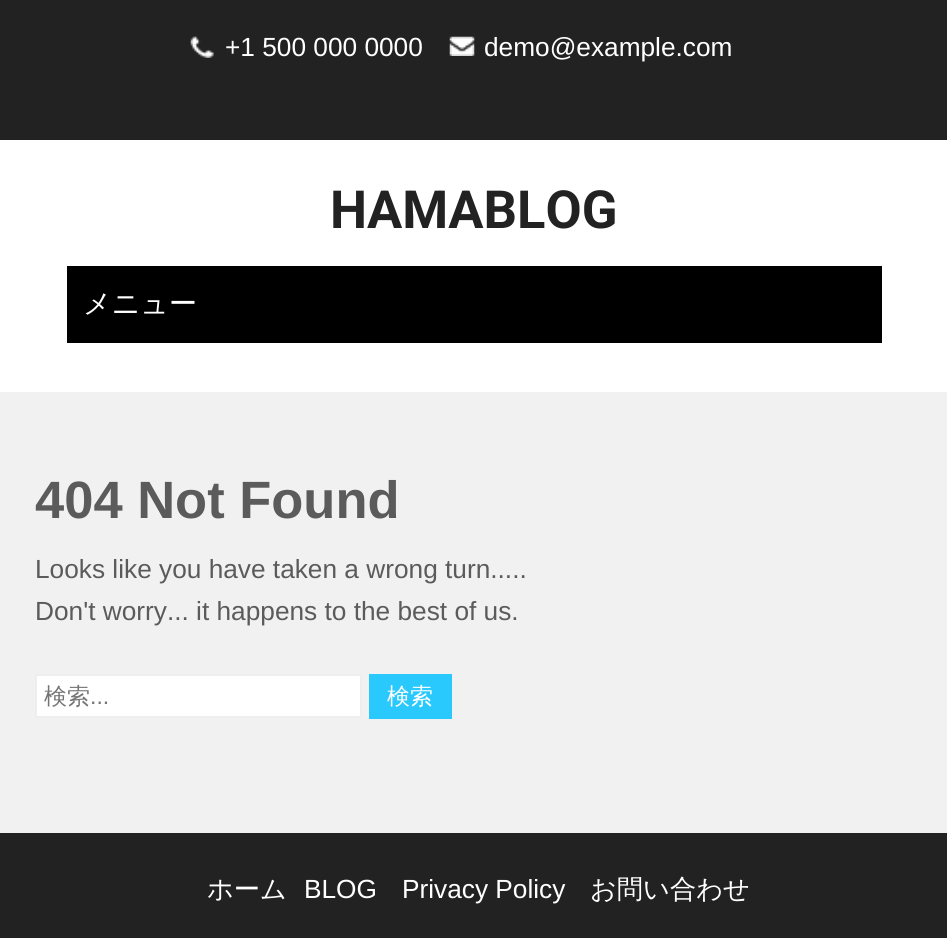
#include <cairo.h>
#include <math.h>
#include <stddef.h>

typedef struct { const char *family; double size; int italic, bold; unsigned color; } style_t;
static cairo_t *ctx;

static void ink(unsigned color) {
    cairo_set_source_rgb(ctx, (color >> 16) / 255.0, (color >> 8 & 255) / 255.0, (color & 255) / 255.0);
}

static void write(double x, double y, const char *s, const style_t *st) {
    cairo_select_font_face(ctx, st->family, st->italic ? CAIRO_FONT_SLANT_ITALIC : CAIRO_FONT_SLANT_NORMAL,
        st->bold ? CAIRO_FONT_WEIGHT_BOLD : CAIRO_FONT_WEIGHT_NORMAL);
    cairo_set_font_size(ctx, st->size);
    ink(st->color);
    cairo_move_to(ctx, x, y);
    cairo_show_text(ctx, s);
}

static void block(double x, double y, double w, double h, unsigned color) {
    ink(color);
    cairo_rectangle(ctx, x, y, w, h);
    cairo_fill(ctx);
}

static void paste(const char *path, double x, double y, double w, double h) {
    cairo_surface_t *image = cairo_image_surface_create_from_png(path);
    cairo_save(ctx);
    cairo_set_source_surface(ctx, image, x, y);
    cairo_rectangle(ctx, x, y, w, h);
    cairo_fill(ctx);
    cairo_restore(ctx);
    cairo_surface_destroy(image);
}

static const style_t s1 = {"Liberation Sans", 26.25, 0, 0, 0xffffff};
static const style_t s2 = {"Roboto", 52.5, 0, 1, 0x222222};
static const style_t s3 = {"WenQuanYi Zen Hei Medium", 28, 0, 0, 0xffffff};
static const style_t s4 = {"Liberation Sans", 52.5, 0, 1, 0x5b5b5b};
static const style_t s5 = {"Liberation Sans", 26.25, 0, 0, 0x5b5b5b};
static const style_t s6 = {"WenQuanYi Zen Hei Medium", 23, 0, 0, 0x757575};
static const style_t s7 = {"Liberation Sans", 23, 0, 0, 0x757575};
static const style_t s8 = {"WenQuanYi Zen Hei Medium", 23, 0, 0, 0xffffff};
static const style_t s9 = {"WenQuanYi Zen Hei Medium", 26.25, 0, 0, 0xffffff};

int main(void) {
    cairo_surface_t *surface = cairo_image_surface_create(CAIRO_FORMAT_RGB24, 947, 938);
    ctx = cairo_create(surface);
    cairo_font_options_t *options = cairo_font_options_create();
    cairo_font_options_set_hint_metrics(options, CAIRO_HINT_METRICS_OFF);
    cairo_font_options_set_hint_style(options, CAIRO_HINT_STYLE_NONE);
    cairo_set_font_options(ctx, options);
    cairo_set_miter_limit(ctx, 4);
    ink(0xf1f1f1);
    cairo_paint(ctx);
    block(0, 0, 947, 140, 0x222222);
    paste("pic1.png", 190, 36, 24, 22);
    write(225, 56, "+1 500 000 0000", &s1);
    paste("pic2.png", 449, 36, 26, 20);
    write(484, 56, "demo@example.com", &s1);
    block(0, 140, 947, 252, 0xffffff);
    write(330, 228, "HAMABLOG", &s2);
    block(67, 266, 815, 77, 0x000000);
    write(83, 313, "メニュー", &s3);
    write(35, 518, "404 Not Found", &s4);
    write(35, 578, "Looks like you have taken a wrong turn.....", &s5);
    write(35, 620, "Don't worry... it happens to the best of us.", &s5);
    ink(0xffffff);
    cairo_rectangle(ctx, 36, 675, 325, 42);
    cairo_fill_preserve(ctx);
    ink(0xeeeeee);
    cairo_stroke(ctx);
    write(44, 704, "検索", &s6);
    write(90, 704, "...", &s7);
    block(369, 674, 83, 45, 0x29c9fd);
    write(387, 704, "検索", &s8);
    block(0, 833, 947, 105, 0x222222);
    write(207, 898, "ホーム", &s9);
    write(304, 898, "BLOG", &s1);
    write(402, 898, "Privacy Policy", &s1);
    write(590, 898, "お問い合わせ", &s9);
    cairo_surface_write_to_png(surface, "screenshot.png");
    cairo_font_options_destroy(options);
    cairo_destroy(ctx);
    cairo_surface_destroy(surface);
    return 0;
}
